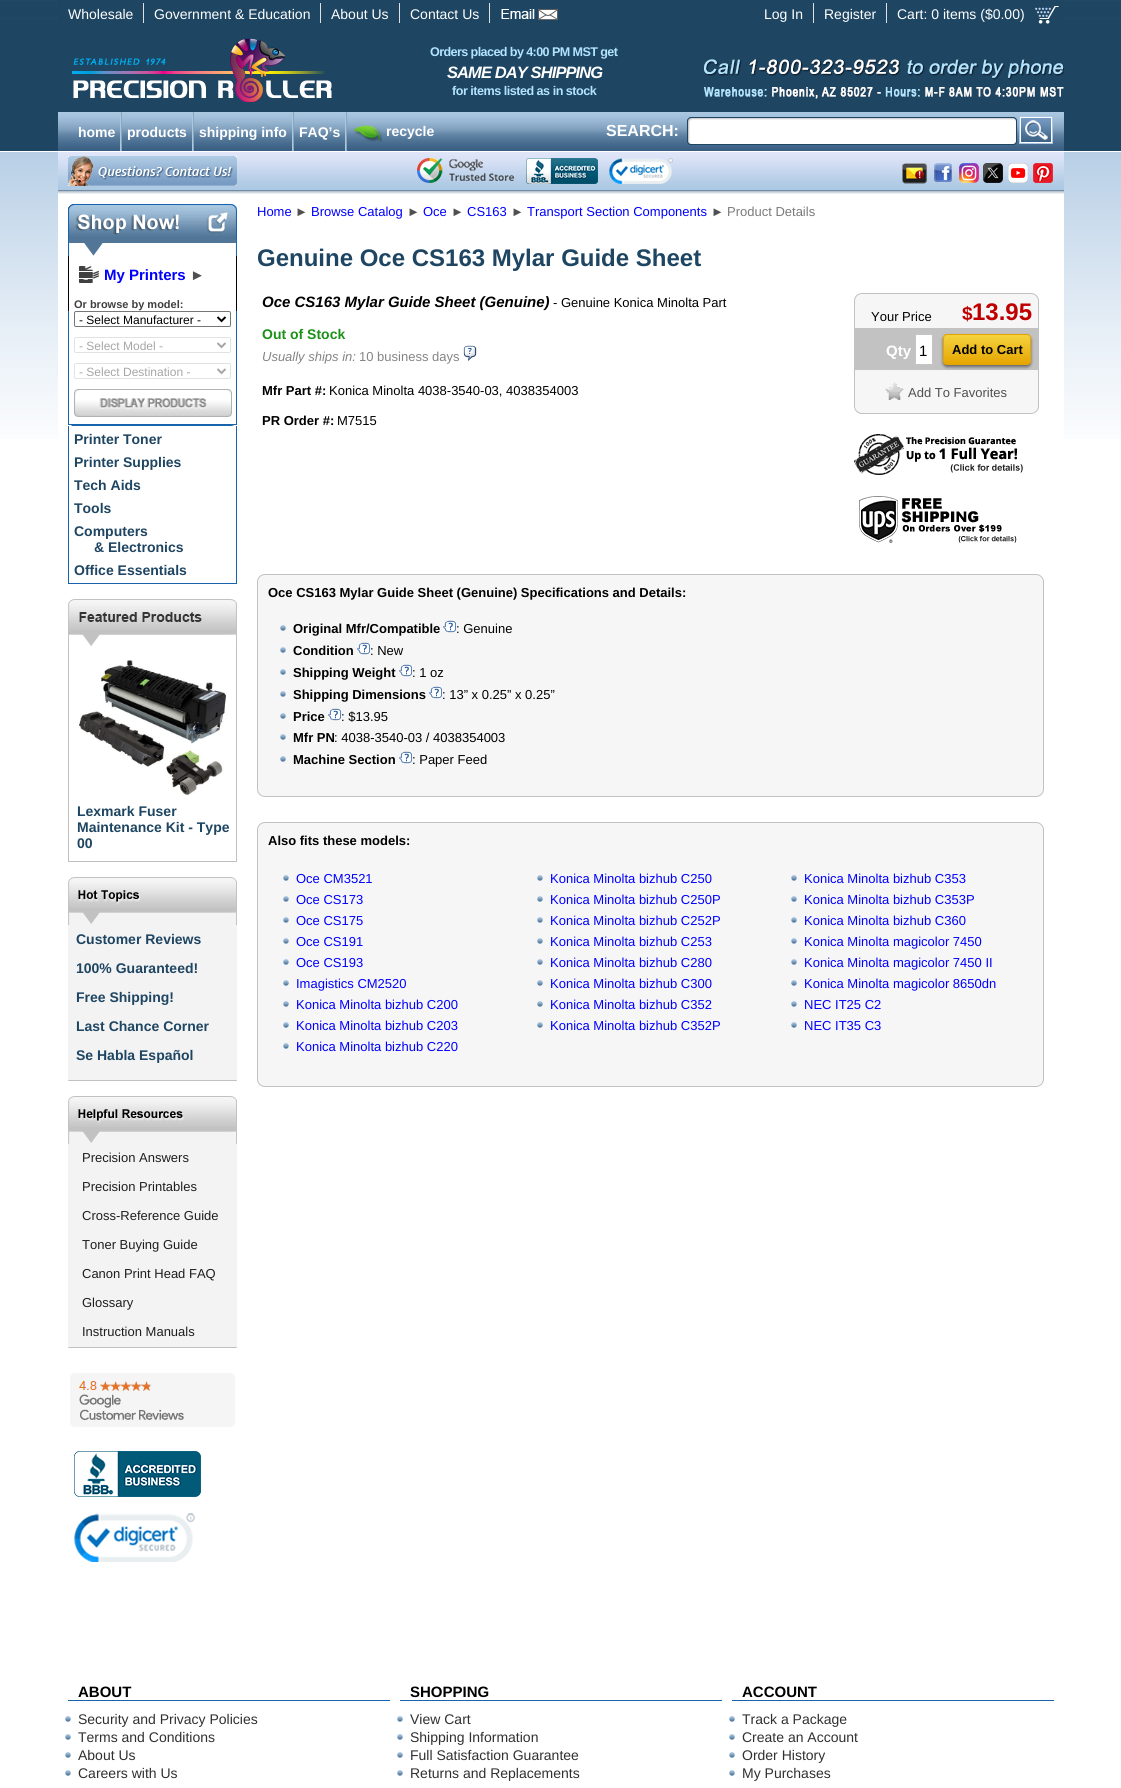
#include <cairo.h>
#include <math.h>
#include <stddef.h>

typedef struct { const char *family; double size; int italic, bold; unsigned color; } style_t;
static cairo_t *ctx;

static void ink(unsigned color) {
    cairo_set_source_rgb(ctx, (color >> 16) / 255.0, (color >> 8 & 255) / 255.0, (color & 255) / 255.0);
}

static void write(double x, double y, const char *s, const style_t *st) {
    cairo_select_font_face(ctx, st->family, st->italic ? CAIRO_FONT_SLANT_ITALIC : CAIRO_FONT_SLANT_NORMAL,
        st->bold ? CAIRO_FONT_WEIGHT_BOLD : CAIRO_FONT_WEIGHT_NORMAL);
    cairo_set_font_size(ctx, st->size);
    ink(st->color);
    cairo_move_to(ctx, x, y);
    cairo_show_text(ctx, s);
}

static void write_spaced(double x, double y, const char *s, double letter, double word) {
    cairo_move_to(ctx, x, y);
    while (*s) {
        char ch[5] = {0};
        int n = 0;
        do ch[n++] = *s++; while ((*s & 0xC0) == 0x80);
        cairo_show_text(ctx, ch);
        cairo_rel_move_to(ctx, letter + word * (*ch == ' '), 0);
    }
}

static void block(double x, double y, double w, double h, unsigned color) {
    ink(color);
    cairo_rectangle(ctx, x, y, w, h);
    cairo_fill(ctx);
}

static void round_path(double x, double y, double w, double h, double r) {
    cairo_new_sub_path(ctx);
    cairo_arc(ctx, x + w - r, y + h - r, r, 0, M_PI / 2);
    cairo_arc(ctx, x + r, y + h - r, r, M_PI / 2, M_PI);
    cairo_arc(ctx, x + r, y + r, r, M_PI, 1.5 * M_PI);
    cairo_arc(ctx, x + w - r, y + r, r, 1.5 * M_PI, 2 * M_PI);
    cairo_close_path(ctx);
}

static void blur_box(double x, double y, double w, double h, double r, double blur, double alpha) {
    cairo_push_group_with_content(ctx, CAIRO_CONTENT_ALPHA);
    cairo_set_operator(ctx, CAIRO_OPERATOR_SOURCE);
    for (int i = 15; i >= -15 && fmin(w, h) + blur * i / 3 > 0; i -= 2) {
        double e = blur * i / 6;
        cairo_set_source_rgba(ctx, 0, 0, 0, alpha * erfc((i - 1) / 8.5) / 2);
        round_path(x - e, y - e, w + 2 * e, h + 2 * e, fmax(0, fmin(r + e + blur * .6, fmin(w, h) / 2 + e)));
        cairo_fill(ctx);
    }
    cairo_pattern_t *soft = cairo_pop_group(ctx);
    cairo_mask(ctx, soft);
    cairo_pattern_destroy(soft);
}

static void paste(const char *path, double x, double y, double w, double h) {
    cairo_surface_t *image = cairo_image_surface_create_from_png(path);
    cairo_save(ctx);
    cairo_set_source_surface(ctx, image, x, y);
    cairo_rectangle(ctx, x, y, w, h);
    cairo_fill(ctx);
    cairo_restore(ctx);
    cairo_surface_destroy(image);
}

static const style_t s1 = {"Liberation Sans", 14, 0, 0, 0xffffff};
static const style_t s2 = {"Liberation Sans", 14, 0, 1, 0xffffff};
static const style_t s3 = {"Liberation Sans", 16, 0, 1, 0xffffff};
static const style_t s4 = {"Liberation Sans", 15, 0, 1, 0x0000ff};
static const style_t s5 = {"Liberation Sans", 15, 0, 1, 0x505050};
static const style_t s6 = {"Liberation Sans", 11, 0, 1, 0x3f3f3f};
static const style_t s7 = {"Liberation Sans", 12, 0, 0, 0x000000};
static const style_t s8 = {"Liberation Sans", 12, 0, 0, 0xa6a6a6};
static const style_t s9 = {"Liberation Sans", 14, 0, 1, 0x1e4562};
static const style_t s10 = {"Liberation Sans", 13, 0, 0, 0x1e1e1e};
static const style_t s11 = {"Liberation Sans", 13, 0, 0, 0x0000ff};
static const style_t s12 = {"Liberation Sans", 13, 0, 0, 0x505050};
static const style_t s13 = {"Liberation Sans", 13, 0, 0, 0x7a7a7a};
static const style_t s14 = {"Liberation Sans", 24, 0, 1, 0x1e4562};
static const style_t s15 = {"Liberation Sans", 15, 1, 1, 0x000000};
static const style_t s16 = {"Liberation Sans", 13, 0, 0, 0x000000};
static const style_t s17 = {"Liberation Sans", 14, 0, 1, 0x1c9118};
static const style_t s18 = {"Liberation Sans", 13, 1, 0, 0x848484};
static const style_t s19 = {"Liberation Sans", 13, 0, 0, 0x848484};
static const style_t s20 = {"Liberation Sans", 13, 0, 1, 0x000000};
static const style_t s21 = {"Liberation Sans", 19, 0, 1, 0xc00000};
static const style_t s22 = {"Liberation Sans", 24, 0, 1, 0xc00000};
static const style_t s23 = {"Liberation Sans", 15, 0, 1, 0xffffff};
static const style_t s24 = {"Liberation Sans", 15, 0, 0, 0x000000};
static const style_t s25 = {"Liberation Sans", 15, 0, 1, 0x000000};
static const style_t s26 = {"Liberation Sans", 14, 0, 0, 0x303030};

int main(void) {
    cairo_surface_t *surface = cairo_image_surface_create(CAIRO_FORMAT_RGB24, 1121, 1788);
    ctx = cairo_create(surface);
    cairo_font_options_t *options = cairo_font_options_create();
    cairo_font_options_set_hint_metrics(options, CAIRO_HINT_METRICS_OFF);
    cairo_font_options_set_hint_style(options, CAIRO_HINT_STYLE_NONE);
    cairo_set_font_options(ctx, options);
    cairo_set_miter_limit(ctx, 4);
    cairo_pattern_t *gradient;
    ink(0xffffff);
    cairo_paint(ctx);
    paste("pic1.png", 0, 0, 1121, 28);
    paste("pic2.png", 0, 28, 1121, 411);
    block(58, 0, 1005, 20, 0x1e4562);
    write(68, 19, "Wholesale", &s1);
    block(143, 3, 1, 20, 0xe0e0e0);
    write(154, 19, "Government & Education", &s1);
    block(320, 3, 1, 20, 0xe0e0e0);
    write(331, 19, "About Us", &s1);
    block(399, 3, 1, 20, 0xe0e0e0);
    write(410, 19, "Contact Us", &s1);
    block(489, 3, 1, 20, 0xe0e0e0);
    paste("pic3.png", 501, 9, 57, 11);
    write(764, 19, "Log In", &s1);
    block(813, 3, 1, 20, 0xe0e0e0);
    write(824, 19, "Register", &s1);
    block(886, 3, 1, 20, 0xe0e0e0);
    write(897, 19, "Cart: 0 items ($0.00)", &s1);
    paste("pic4.png", 1035, 6, 24, 18);
    paste("pic5.png", 72, 38, 260, 64);
    cairo_select_font_face(ctx, "Liberation Sans", CAIRO_FONT_SLANT_NORMAL, CAIRO_FONT_WEIGHT_BOLD);
    cairo_set_font_size(ctx, 12.6);
    ink(0xb2e4ff);
    write_spaced(430, 56, "Orders placed by 4:00 PM MST get", -0.6, 0);
    cairo_select_font_face(ctx, "Liberation Sans", CAIRO_FONT_SLANT_ITALIC, CAIRO_FONT_WEIGHT_BOLD);
    cairo_set_font_size(ctx, 16.5);
    ink(0xffffff);
    write_spaced(447, 78, "SAME DAY SHIPPING", -0.9, 0);
    cairo_select_font_face(ctx, "Liberation Sans", CAIRO_FONT_SLANT_NORMAL, CAIRO_FONT_WEIGHT_BOLD);
    cairo_set_font_size(ctx, 12.6);
    ink(0xb2e4ff);
    write_spaced(452, 95, "for items listed as in stock", -0.5, 0);
    paste("pic6.png", 704, 59, 360, 40);
    paste("pic7.png", 58, 112, 1006, 39);
    write(78, 137, "home", &s2);
    paste("pic8.png", 120, 112, 2, 39);
    write(127, 137, "products", &s2);
    paste("pic8.png", 192, 112, 2, 39);
    write(199, 137, "shipping info", &s2);
    paste("pic8.png", 292, 112, 2, 39);
    write(299, 137, "FAQ’s", &s2);
    paste("pic8.png", 345, 112, 2, 39);
    paste("pic9.png", 353, 125, 29, 17);
    write(386, 136, "recycle", &s2);
    write(606, 136, "SEARCH:", &s3);
    paste("pic10.png", 687, 117, 330, 28);
    paste("pic11.png", 1019, 116, 34, 28);
    paste("pic12.png", 58, 152, 1006, 42);
    paste("pic13.png", 68, 156, 169, 30);
    paste("pic14.png", 417, 158, 97, 25);
    paste("pic15.png", 526, 158, 72, 26);
    paste("pic16.png", 609, 158, 64, 26);
    paste("pic17.png", 902, 163, 25, 21);
    paste("pic18.png", 934, 163, 18, 19);
    paste("pic19.png", 959, 163, 20, 20);
    paste("pic20.png", 983, 163, 20, 20);
    paste("pic21.png", 1008, 163, 20, 20);
    paste("pic22.png", 1033, 163, 20, 20);
    block(58, 194, 1006, 245, 0xffffff);
    paste("pic23.png", 68, 204, 169, 222);
    paste("pic24.png", 68, 204, 111, 48);
    paste("pic25.png", 206, 212, 22, 21);
    paste("pic26.png", 206, 212, 22, 21);
    paste("pic27.png", 231, 204, 6, 52);
    block(78, 266, 125, 17, 0xffffff);
    block(236, 256, 1, 55, 0x000000);
    block(68, 256, 1, 55, 0x000000);
    paste("pic28.png", 79, 266, 20, 17);
    write(104, 280, "My Printers", &s4);
    write(190, 280, "►", &s5);
    block(74, 300, 108, 11, 0xffffff);
    write(74, 308, "Or browse by model:", &s6);
    block(74, 312, 157, 106, 0xffffff);
    round_path(74.5, 311.5, 156, 15, 1.5);
    ink(0x767676);
    cairo_set_line_width(ctx, 1);
    cairo_stroke(ctx);
    cairo_new_path(ctx);
    cairo_move_to(ctx, 217.5, 317);
    cairo_line_to(ctx, 221.5, 321);
    cairo_line_to(ctx, 225.5, 317);
    ink(0x000000);
    cairo_set_line_width(ctx, 2);
    cairo_stroke(ctx);
    write(79, 324, "- Select Manufacturer -", &s7);
    round_path(74.5, 337.5, 156, 15, 1.5);
    ink(0xe2e2e2);
    cairo_set_line_width(ctx, 1);
    cairo_stroke(ctx);
    cairo_new_path(ctx);
    cairo_move_to(ctx, 217.5, 343);
    cairo_line_to(ctx, 221.5, 347);
    cairo_line_to(ctx, 225.5, 343);
    ink(0xa6a6a6);
    cairo_set_line_width(ctx, 2);
    cairo_stroke(ctx);
    write(79, 350, "- Select Model -", &s8);
    round_path(74.5, 363.5, 156, 15, 1.5);
    ink(0xe2e2e2);
    cairo_set_line_width(ctx, 1);
    cairo_stroke(ctx);
    cairo_new_path(ctx);
    cairo_move_to(ctx, 217.5, 369);
    cairo_line_to(ctx, 221.5, 373);
    cairo_line_to(ctx, 225.5, 369);
    ink(0xa6a6a6);
    cairo_set_line_width(ctx, 2);
    cairo_stroke(ctx);
    write(79, 376, "- Select Destination -", &s8);
    paste("pic29.png", 74, 389, 158, 28);
    block(236, 426, 1, 158, 0x1763ad);
    block(68, 583, 169, 1, 0x1763ad);
    block(68, 426, 1, 158, 0x1763ad);
    write(74, 444, "Printer Toner", &s9);
    write(74, 467, "Printer Supplies", &s9);
    write(74, 490, "Tech Aids", &s9);
    write(74, 513, "Tools", &s9);
    write(74, 536, "Computers", &s9);
    write(94, 552, "& Electronics", &s9);
    write(74, 575, "Office Essentials", &s9);
    paste("pic30.png", 68, 599, 169, 47);
    block(236, 646, 1, 216, 0xc0c0c0);
    block(68, 861, 169, 1, 0xc0c0c0);
    block(68, 646, 1, 216, 0xc0c0c0);
    paste("pic31.png", 78, 660, 149, 135);
    write(77, 816, "Lexmark Fuser", &s9);
    write(77, 832, "Maintenance Kit - Type", &s9);
    write(77, 848, "00", &s9);
    paste("pic32.png", 68, 877, 169, 48);
    block(68, 925, 169, 155, 0xf3f3f3);
    write(76, 944, "Customer Reviews", &s9);
    write(76, 973, "100% Guaranteed!", &s9);
    write(76, 1002, "Free Shipping!", &s9);
    write(76, 1031, "Last Chance Corner", &s9);
    write(76, 1060, "Se Habla Español", &s9);
    paste("pic33.png", 68, 1080, 169, 1);
    paste("pic34.png", 68, 1096, 169, 48);
    block(68, 1144, 169, 203, 0xf3f3f3);
    write(82, 1162, "Precision Answers", &s10);
    write(82, 1191, "Precision Printables", &s10);
    write(82, 1220, "Cross-Reference Guide", &s10);
    write(82, 1249, "Toner Buying Guide", &s10);
    write(82, 1278, "Canon Print Head FAQ", &s10);
    write(82, 1307, "Glossary", &s10);
    write(82, 1336, "Instruction Manuals", &s10);
    paste("pic33.png", 68, 1347, 169, 1);
    paste("pic35.png", 70, 1373, 165, 54);
    paste("pic36.png", 74, 1451, 127, 46);
    paste("pic37.png", 74, 1513, 121, 49);
    write(257, 216, "Home", &s11);
    write(295, 216, "►", &s12);
    write(311, 216, "Browse Catalog", &s11);
    write(407, 216, "►", &s12);
    write(423, 216, "Oce", &s11);
    write(451, 216, "►", &s12);
    write(467, 216, "CS163", &s11);
    write(511, 216, "►", &s12);
    write(527, 216, "Transport Section Components", &s11);
    write(711, 216, "►", &s12);
    write(727, 216, "Product Details", &s13);
    write(257, 266, "Genuine Oce CS163 Mylar Guide Sheet", &s14);
    write(262, 307, "Oce CS163 Mylar Guide Sheet (Genuine)", &s15);
    write(553, 307, "- Genuine Konica Minolta Part", &s16);
    write(262, 339, "Out of Stock", &s17);
    write(262, 361, "Usually ships in:", &s18);
    write(359, 361, "10 business days", &s19);
    paste("pic38.png", 463, 345, 14, 16);
    write(262, 395, "Mfr Part #:", &s20);
    write(329, 395, "Konica Minolta 4038-3540-03, 4038354003", &s16);
    write(262, 425, "PR Order #:", &s20);
    write(337, 425, "M7515", &s16);
    ink(0xf6f6f6);
    round_path(854.5, 293.5, 184, 120, 7.5);
    cairo_fill_preserve(ctx);
    ink(0xc1c1c1);
    cairo_set_line_width(ctx, 1);
    cairo_stroke(ctx);
    write(871, 321, "Your Price", &s16);
    write(962, 320, "$", &s21);
    write(972, 320, "13.95", &s22);
    block(855, 328, 183, 42, 0xc2c2c2);
    write(886, 356, "Qty", &s23);
    cairo_rectangle(ctx, 915.5, 334.5, 17, 30);
    cairo_fill_preserve(ctx);
    ink(0xc5c5c5);
    cairo_stroke(ctx);
    write(919, 356, "1", &s24);
    ink(0x666666);
    blur_box(943, 336, 88, 31, 4, 1.5, 1);
    cairo_save(ctx);
    round_path(943, 334, 88, 31, 4);
    cairo_clip(ctx);
    gradient = cairo_pattern_create_linear(987, 335, 987, 364);
    cairo_pattern_add_color_stop_rgba(gradient, 0, 0.957, 0.827, 0.247, 1);
    cairo_pattern_add_color_stop_rgba(gradient, 1, 0.902, 0.647, 0.004, 1);
    cairo_set_source(ctx, gradient);
    cairo_pattern_destroy(gradient);
    cairo_rectangle(ctx, 943, 335, 88, 29);
    cairo_fill(ctx);
    cairo_restore(ctx);
    round_path(943.5, 334.5, 87, 30, 3.5);
    ink(0xe6a400);
    cairo_stroke(ctx);
    write(952, 354, "Add to Cart", &s20);
    paste("pic39.png", 885, 382, 19, 18);
    write(908, 397, "Add To Favorites", &s12);
    paste("pic40.png", 854, 434, 169, 41);
    paste("pic41.png", 859, 496, 158, 47);
    ink(0xf6f6f6);
    round_path(257.5, 574.5, 786, 222, 7.5);
    cairo_fill_preserve(ctx);
    ink(0xc1c1c1);
    cairo_stroke(ctx);
    write(268, 597, "Oce CS163 Mylar Guide Sheet (Genuine) Specifications and Details:", &s20);
    paste("pic42.png", 280, 625, 6, 6);
    write(293, 633, "Original Mfr/Compatible", &s20);
    paste("pic43.png", 443, 620, 13, 13);
    write(456, 633, ": Genuine", &s16);
    paste("pic42.png", 280, 647, 6, 6);
    write(293, 655, "Condition", &s20);
    paste("pic43.png", 357, 642, 13, 13);
    write(370, 655, ": New", &s16);
    paste("pic42.png", 280, 669, 6, 6);
    write(293, 677, "Shipping Weight", &s20);
    paste("pic43.png", 399, 664, 13, 13);
    write(412, 677, ": 1 oz", &s16);
    paste("pic42.png", 280, 691, 6, 6);
    write(293, 699, "Shipping Dimensions", &s20);
    paste("pic43.png", 429, 686, 13, 13);
    write(442, 699, ": 13” x 0.25” x 0.25”", &s16);
    paste("pic42.png", 280, 713, 6, 6);
    write(293, 721, "Price", &s20);
    paste("pic43.png", 328, 708, 13, 13);
    write(341, 721, ": $13.95", &s16);
    paste("pic42.png", 280, 734, 6, 6);
    write(293, 742, "Mfr PN", &s20);
    write(334, 742, ": 4038-3540-03 / 4038354003", &s16);
    paste("pic42.png", 280, 756, 6, 6);
    write(293, 764, "Machine Section", &s20);
    paste("pic43.png", 399, 751, 13, 13);
    write(412, 764, ": Paper Feed", &s16);
    ink(0xf6f6f6);
    round_path(257.5, 822.5, 786, 264, 7.5);
    cairo_fill_preserve(ctx);
    ink(0xc1c1c1);
    cairo_stroke(ctx);
    write(268, 845, "Also fits these models:", &s20);
    paste("pic42.png", 283, 875, 6, 6);
    write(296, 883, "Oce CM3521", &s11);
    paste("pic42.png", 283, 896, 6, 6);
    write(296, 904, "Oce CS173", &s11);
    paste("pic42.png", 283, 917, 6, 6);
    write(296, 925, "Oce CS175", &s11);
    paste("pic42.png", 283, 938, 6, 6);
    write(296, 946, "Oce CS191", &s11);
    paste("pic42.png", 283, 959, 6, 6);
    write(296, 967, "Oce CS193", &s11);
    paste("pic42.png", 283, 980, 6, 6);
    write(296, 988, "Imagistics CM2520", &s11);
    paste("pic42.png", 283, 1001, 6, 6);
    write(296, 1009, "Konica Minolta bizhub C200", &s11);
    paste("pic42.png", 283, 1022, 6, 6);
    write(296, 1030, "Konica Minolta bizhub C203", &s11);
    paste("pic42.png", 283, 1043, 6, 6);
    write(296, 1051, "Konica Minolta bizhub C220", &s11);
    paste("pic42.png", 537, 875, 6, 6);
    write(550, 883, "Konica Minolta bizhub C250", &s11);
    paste("pic42.png", 537, 896, 6, 6);
    write(550, 904, "Konica Minolta bizhub C250P", &s11);
    paste("pic42.png", 537, 917, 6, 6);
    write(550, 925, "Konica Minolta bizhub C252P", &s11);
    paste("pic42.png", 537, 938, 6, 6);
    write(550, 946, "Konica Minolta bizhub C253", &s11);
    paste("pic42.png", 537, 959, 6, 6);
    write(550, 967, "Konica Minolta bizhub C280", &s11);
    paste("pic42.png", 537, 980, 6, 6);
    write(550, 988, "Konica Minolta bizhub C300", &s11);
    paste("pic42.png", 537, 1001, 6, 6);
    write(550, 1009, "Konica Minolta bizhub C352", &s11);
    paste("pic42.png", 537, 1022, 6, 6);
    write(550, 1030, "Konica Minolta bizhub C352P", &s11);
    paste("pic42.png", 791, 875, 6, 6);
    write(804, 883, "Konica Minolta bizhub C353", &s11);
    paste("pic42.png", 791, 896, 6, 6);
    write(804, 904, "Konica Minolta bizhub C353P", &s11);
    paste("pic42.png", 791, 917, 6, 6);
    write(804, 925, "Konica Minolta bizhub C360", &s11);
    paste("pic42.png", 791, 938, 6, 6);
    write(804, 946, "Konica Minolta magicolor 7450", &s11);
    paste("pic42.png", 791, 959, 6, 6);
    write(804, 967, "Konica Minolta magicolor 7450 II", &s11);
    paste("pic42.png", 791, 980, 6, 6);
    write(804, 988, "Konica Minolta magicolor 8650dn", &s11);
    paste("pic42.png", 791, 1001, 6, 6);
    write(804, 1009, "NEC IT25 C2", &s11);
    paste("pic42.png", 791, 1022, 6, 6);
    write(804, 1030, "NEC IT35 C3", &s11);
    block(68, 1700, 322, 1, 0x1763ad);
    write(78, 1697, "ABOUT", &s25);
    block(400, 1700, 322, 1, 0x1763ad);
    write(410, 1697, "SHOPPING", &s25);
    block(732, 1700, 322, 1, 0x1763ad);
    write(742, 1697, "ACCOUNT", &s25);
    paste("pic44.png", 65, 1716, 6, 6);
    write(78, 1724, "Security and Privacy Policies", &s26);
    paste("pic44.png", 65, 1734, 6, 6);
    write(78, 1742, "Terms and Conditions", &s26);
    paste("pic44.png", 65, 1752, 6, 6);
    write(78, 1760, "About Us", &s26);
    paste("pic44.png", 65, 1770, 6, 6);
    write(78, 1778, "Careers with Us", &s26);
    paste("pic44.png", 397, 1716, 6, 6);
    write(410, 1724, "View Cart", &s26);
    paste("pic44.png", 397, 1734, 6, 6);
    write(410, 1742, "Shipping Information", &s26);
    paste("pic44.png", 397, 1752, 6, 6);
    write(410, 1760, "Full Satisfaction Guarantee", &s26);
    paste("pic44.png", 397, 1770, 6, 6);
    write(410, 1778, "Returns and Replacements", &s26);
    paste("pic44.png", 729, 1716, 6, 6);
    write(742, 1724, "Track a Package", &s26);
    paste("pic44.png", 729, 1734, 6, 6);
    write(742, 1742, "Create an Account", &s26);
    paste("pic44.png", 729, 1752, 6, 6);
    write(742, 1760, "Order History", &s26);
    paste("pic44.png", 729, 1770, 6, 6);
    write(742, 1778, "My Purchases", &s26);
    cairo_surface_write_to_png(surface, "screenshot.png");
    cairo_font_options_destroy(options);
    cairo_destroy(ctx);
    cairo_surface_destroy(surface);
    return 0;
}
